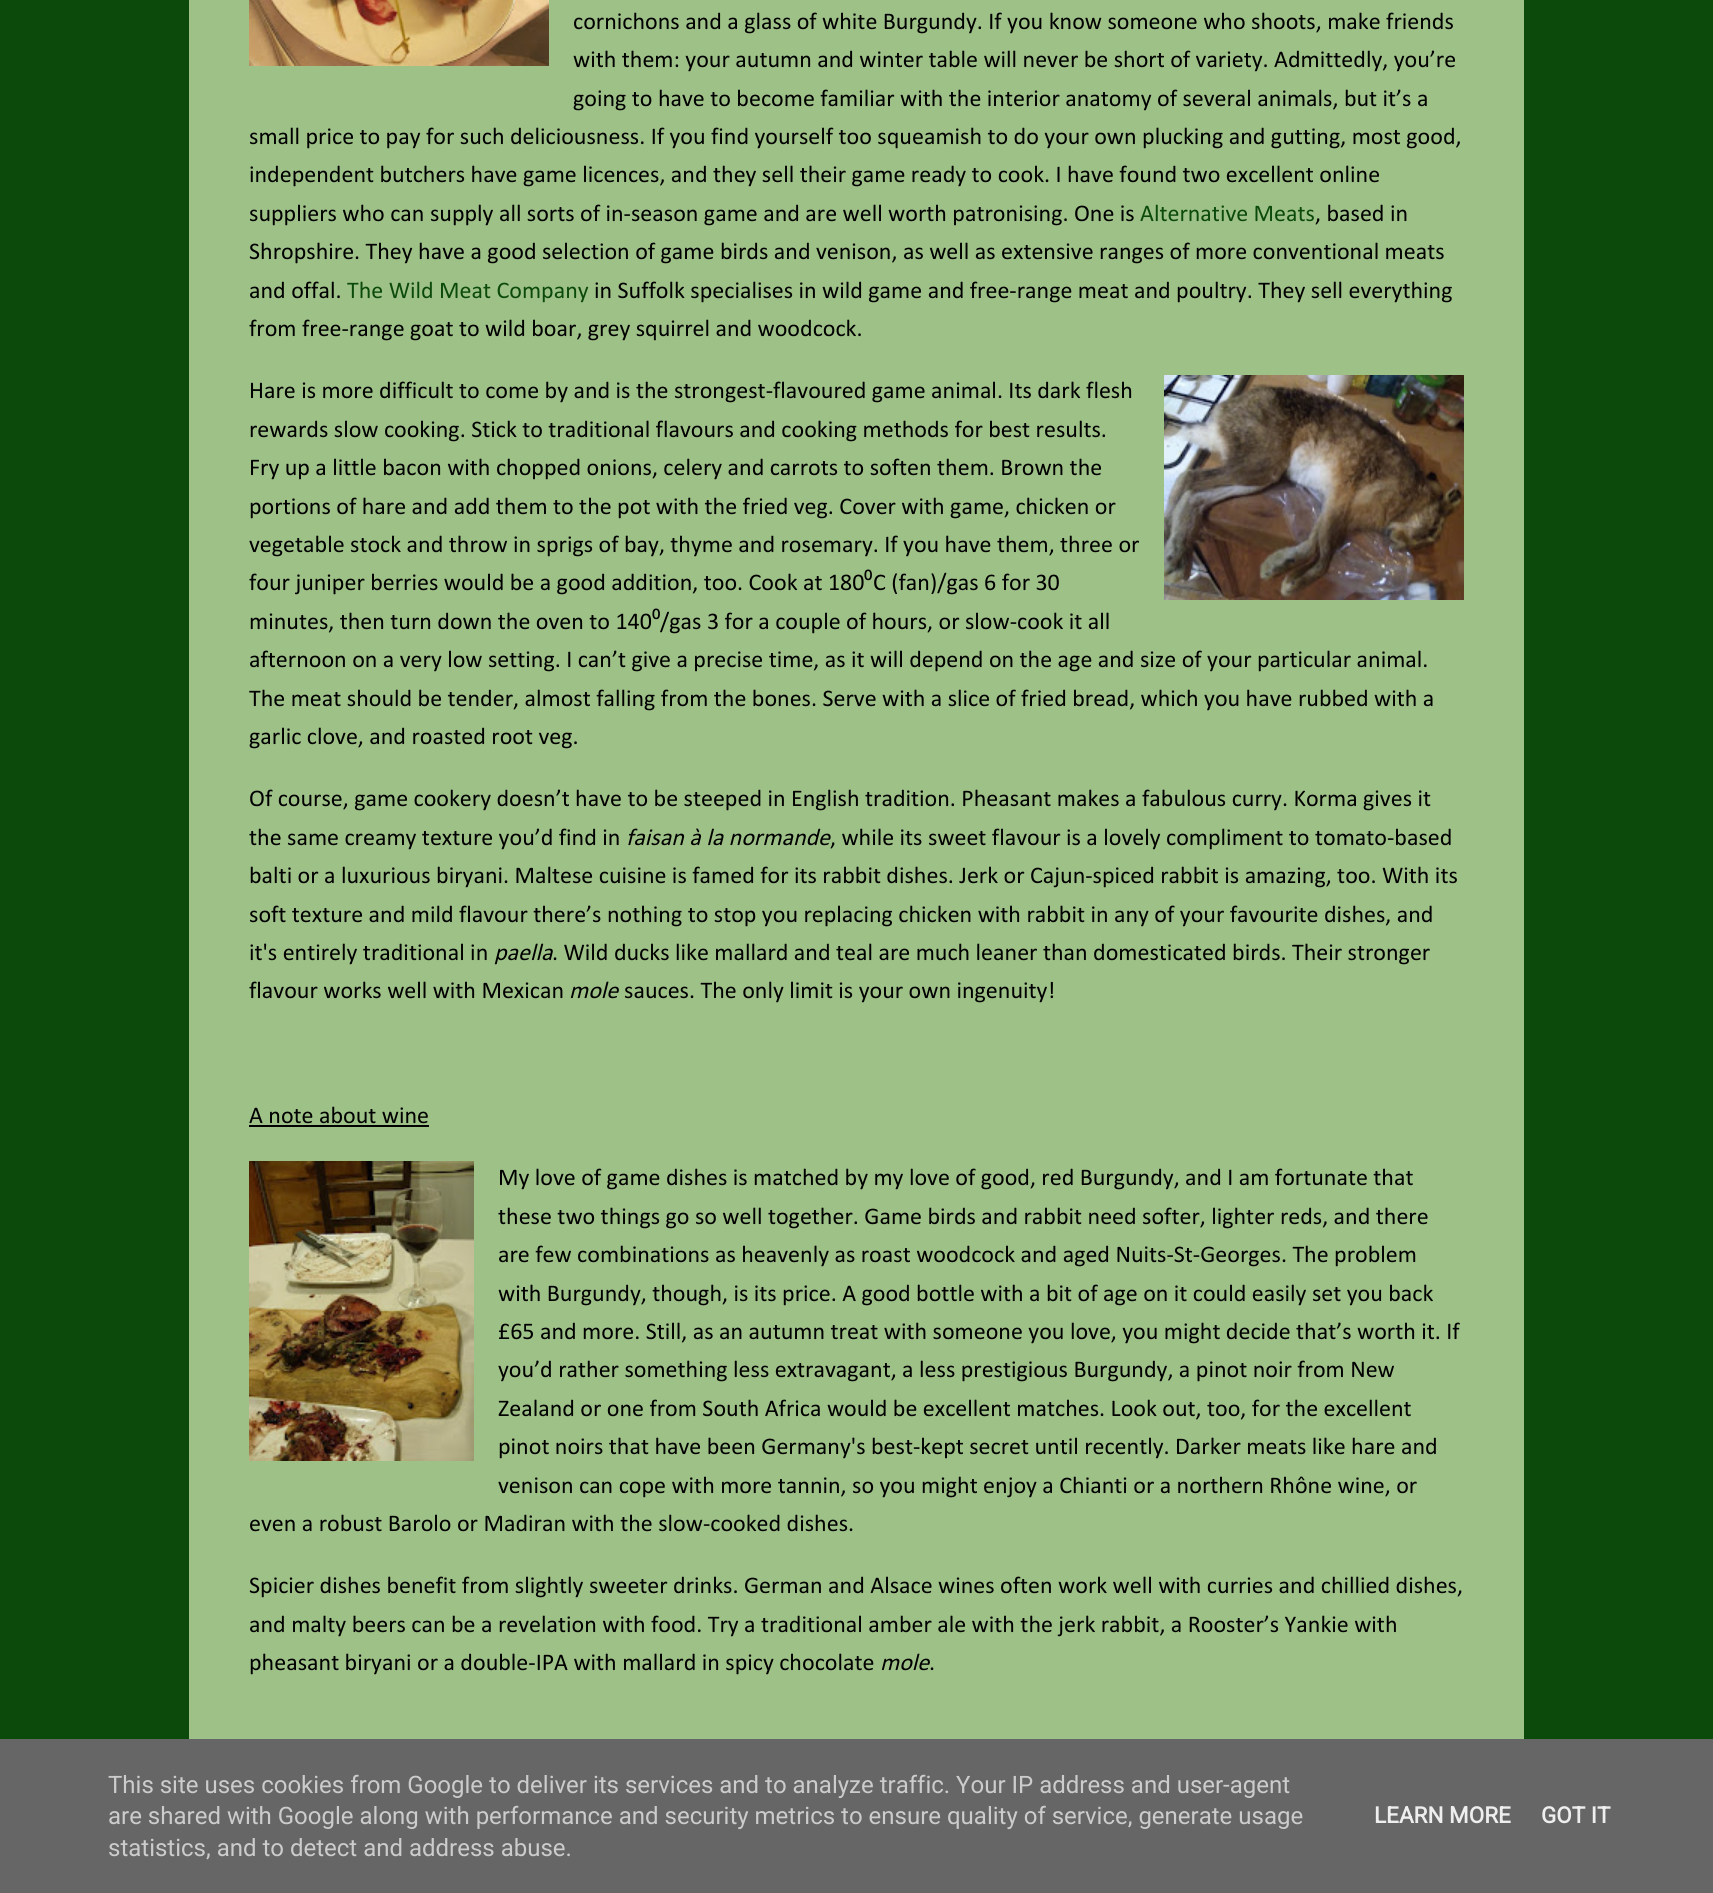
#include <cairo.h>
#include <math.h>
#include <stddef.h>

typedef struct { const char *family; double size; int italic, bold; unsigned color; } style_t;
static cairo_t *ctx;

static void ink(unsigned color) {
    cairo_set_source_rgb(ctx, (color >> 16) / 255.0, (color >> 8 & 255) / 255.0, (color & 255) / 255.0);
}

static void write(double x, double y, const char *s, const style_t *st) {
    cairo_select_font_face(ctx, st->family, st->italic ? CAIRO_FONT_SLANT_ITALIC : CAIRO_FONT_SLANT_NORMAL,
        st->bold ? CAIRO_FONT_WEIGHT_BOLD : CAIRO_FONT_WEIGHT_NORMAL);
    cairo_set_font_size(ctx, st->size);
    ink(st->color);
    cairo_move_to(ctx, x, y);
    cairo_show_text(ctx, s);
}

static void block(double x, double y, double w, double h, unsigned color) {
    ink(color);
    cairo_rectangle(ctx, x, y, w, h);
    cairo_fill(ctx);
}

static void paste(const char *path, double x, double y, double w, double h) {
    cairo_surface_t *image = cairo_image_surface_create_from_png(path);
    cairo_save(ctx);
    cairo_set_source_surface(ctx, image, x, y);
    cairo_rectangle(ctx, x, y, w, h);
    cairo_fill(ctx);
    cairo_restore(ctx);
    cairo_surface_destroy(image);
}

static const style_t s1 = {"Calibri", 24, 0, 0, 0x000000};
static const style_t s2 = {"Calibri", 24, 0, 0, 0x0b4a0b};
static const style_t s3 = {"Noto Sans", 24, 0, 0, 0x000000};
static const style_t s4 = {"Calibri", 24, 1, 0, 0x000000};
static const style_t s5 = {"Roboto", 24, 0, 0, 0xcccccc};
static const style_t s6 = {"Roboto", 22.5, 0, 1, 0xeeeeee};

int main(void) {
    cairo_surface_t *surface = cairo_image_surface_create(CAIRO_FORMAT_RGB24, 1713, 1893);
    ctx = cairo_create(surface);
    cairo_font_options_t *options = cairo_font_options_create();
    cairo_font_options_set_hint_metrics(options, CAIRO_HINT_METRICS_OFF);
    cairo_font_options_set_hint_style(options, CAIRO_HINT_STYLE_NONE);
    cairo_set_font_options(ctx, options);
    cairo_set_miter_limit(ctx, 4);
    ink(0x0b4a0b);
    cairo_paint(ctx);
    block(189, 0, 1335, 1739, 0x9ec187);
    paste("pic1.png", 249, 0, 300, 66);
    write(573, 29, "cornichons and a glass of white Burgundy. If you know someone who shoots, make friends", &s1);
    write(573, 67, "with them: your autumn and winter table will never be short of variety. Admittedly, you’re", &s1);
    write(573, 106, "going to have to become familiar with the interior anatomy of several animals, but it’s a", &s1);
    write(249, 144, "small price to pay for such deliciousness. If you find yourself too squeamish to do your own plucking and gutting, most good,", &s1);
    write(249, 182, "independent butchers have game licences, and they sell their game ready to cook. I have found two excellent online", &s1);
    write(249, 221, "suppliers who can supply all sorts of in-season game and are well worth patronising. One is", &s1);
    write(1140, 221, "Alternative Meats", &s2);
    write(1315, 221, ", based in", &s1);
    write(249, 259, "Shropshire. They have a good selection of game birds and venison, as well as extensive ranges of more conventional meats", &s1);
    write(249, 298, "and offal.", &s1);
    write(347, 298, "The Wild Meat Company", &s2);
    write(594, 298, "in Suffolk specialises in wild game and free-range meat and poultry. They sell everything", &s1);
    write(249, 336, "from free-range goat to wild boar, grey squirrel and woodcock.", &s1);
    write(249, 398, "Hare is more difficult to come by and is the strongest-flavoured game animal. Its dark flesh", &s1);
    paste("pic2.png", 1164, 375, 300, 225);
    write(249, 437, "rewards slow cooking. Stick to traditional flavours and cooking methods for best results.", &s1);
    write(249, 475, "Fry up a little bacon with chopped onions, celery and carrots to soften them. Brown the", &s1);
    write(249, 514, "portions of hare and add them to the pot with the fried veg. Cover with game, chicken or", &s1);
    write(249, 552, "vegetable stock and throw in sprigs of bay, thyme and rosemary. If you have them, three or", &s1);
    write(249, 590, "four juniper berries would be a good addition, too. Cook at 180", &s1);
    write(864, 590, "⁰", &s3);
    write(873, 590, "C (fan)/gas 6 for 30", &s1);
    write(249, 629, "minutes, then turn down the oven to 140", &s1);
    write(652, 629, "⁰", &s3);
    write(660, 629, "/gas 3 for a couple of hours, or slow-cook it all", &s1);
    write(249, 667, "afternoon on a very low setting. I can’t give a precise time, as it will depend on the age and size of your particular animal.", &s1);
    write(249, 706, "The meat should be tender, almost falling from the bones. Serve with a slice of fried bread, which you have rubbed with a", &s1);
    write(249, 744, "garlic clove, and roasted root veg.", &s1);
    write(249, 806, "Of course, game cookery doesn’t have to be steeped in English tradition. Pheasant makes a fabulous curry. Korma gives it", &s1);
    write(249, 845, "the same creamy texture you’d find in", &s1);
    write(626, 845, "faisan à la normande", &s4);
    write(830, 845, ", while its sweet flavour is a lovely compliment to tomato-based", &s1);
    write(249, 883, "balti or a luxurious biryani. Maltese cuisine is famed for its rabbit dishes. Jerk or Cajun-spiced rabbit is amazing, too. With its", &s1);
    write(249, 922, "soft texture and mild flavour there’s nothing to stop you replacing chicken with rabbit in any of your favourite dishes, and", &s1);
    write(249, 960, "it's entirely traditional in", &s1);
    write(494, 960, "paella", &s4);
    write(552, 960, ". Wild ducks like mallard and teal are much leaner than domesticated birds. Their stronger", &s1);
    write(249, 998, "flavour works well with Mexican", &s1);
    write(569, 998, "mole", &s4);
    write(624, 998, "sauces. The only limit is your own ingenuity!", &s1);
    write(249, 1123, "A note about wine", &s1);
    block(249, 1125, 180, 2, 0x000000);
    paste("pic3.png", 249, 1161, 225, 300);
    write(498, 1185, "My love of game dishes is matched by my love of good, red Burgundy, and I am fortunate that", &s1);
    write(498, 1224, "these two things go so well together. Game birds and rabbit need softer, lighter reds, and there", &s1);
    write(498, 1262, "are few combinations as heavenly as roast woodcock and aged Nuits-St-Georges. The problem", &s1);
    write(498, 1301, "with Burgundy, though, is its price. A good bottle with a bit of age on it could easily set you back", &s1);
    write(498, 1339, "£65 and more. Still, as an autumn treat with someone you love, you might decide that’s worth it. If", &s1);
    write(498, 1377, "you’d rather something less extravagant, a less prestigious Burgundy, a pinot noir from New", &s1);
    write(498, 1416, "Zealand or one from South Africa would be excellent matches. Look out, too, for the excellent", &s1);
    write(498, 1454, "pinot noirs that have been Germany's best-kept secret until recently. Darker meats like hare and", &s1);
    write(498, 1493, "venison can cope with more tannin, so you might enjoy a Chianti or a northern Rhône wine, or", &s1);
    write(249, 1531, "even a robust Barolo or Madiran with the slow-cooked dishes.", &s1);
    write(249, 1593, "Spicier dishes benefit from slightly sweeter drinks. German and Alsace wines often work well with curries and chillied dishes,", &s1);
    write(249, 1632, "and malty beers can be a revelation with food. Try a traditional amber ale with the jerk rabbit, a Rooster’s Yankie with", &s1);
    write(249, 1670, "pheasant biryani or a double-IPA with mallard in spicy chocolate", &s1);
    write(880, 1670, "mole", &s4);
    write(929, 1670, ".", &s1);
    block(0, 1739, 1713, 154, 0x666666);
    write(108, 1793, "This site uses cookies from Google to deliver its services and to analyze traffic. Your IP address and user-agent", &s5);
    write(108, 1824, "are shared with Google along with performance and security metrics to ensure quality of service, generate usage", &s5);
    write(108, 1856, "statistics, and to detect and address abuse.", &s5);
    write(1374, 1823, "LEARN MORE", &s6);
    write(1541, 1823, "GOT IT", &s6);
    cairo_surface_write_to_png(surface, "screenshot.png");
    cairo_font_options_destroy(options);
    cairo_destroy(ctx);
    cairo_surface_destroy(surface);
    return 0;
}
